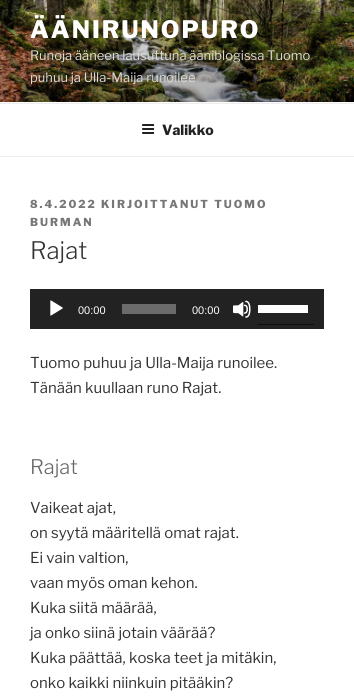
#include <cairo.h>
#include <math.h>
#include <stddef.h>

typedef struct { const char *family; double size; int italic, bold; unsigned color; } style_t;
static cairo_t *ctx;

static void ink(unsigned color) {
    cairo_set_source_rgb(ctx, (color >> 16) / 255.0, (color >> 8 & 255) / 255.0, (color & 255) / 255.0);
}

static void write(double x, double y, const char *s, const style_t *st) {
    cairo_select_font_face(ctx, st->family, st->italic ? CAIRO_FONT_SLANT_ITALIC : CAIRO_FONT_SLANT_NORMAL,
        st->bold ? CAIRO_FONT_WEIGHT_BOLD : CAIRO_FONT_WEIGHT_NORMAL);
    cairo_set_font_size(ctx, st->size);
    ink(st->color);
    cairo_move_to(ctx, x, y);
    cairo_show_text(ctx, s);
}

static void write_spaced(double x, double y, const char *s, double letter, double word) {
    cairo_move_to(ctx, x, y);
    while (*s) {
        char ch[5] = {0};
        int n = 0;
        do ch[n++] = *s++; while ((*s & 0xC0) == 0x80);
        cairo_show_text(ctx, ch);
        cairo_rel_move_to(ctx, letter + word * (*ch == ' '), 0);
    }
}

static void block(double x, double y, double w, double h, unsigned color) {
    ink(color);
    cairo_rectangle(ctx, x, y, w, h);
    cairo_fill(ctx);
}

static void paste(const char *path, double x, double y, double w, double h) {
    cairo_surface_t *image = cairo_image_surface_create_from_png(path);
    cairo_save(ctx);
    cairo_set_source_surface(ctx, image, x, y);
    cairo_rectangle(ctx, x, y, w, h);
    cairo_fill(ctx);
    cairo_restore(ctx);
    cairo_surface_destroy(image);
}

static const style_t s1 = {"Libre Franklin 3 Thin", 13, 0, 0, 0xdbdad5};
static const style_t s2 = {"Libre Franklin Thin", 14, 0, 0, 0x222222};
static const style_t s3 = {"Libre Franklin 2 Thin", 24, 0, 0, 0x333333};
static const style_t s4 = {"Liberation Sans", 11, 0, 0, 0xffffff};
static const style_t s5 = {"Libre Franklin 3 Thin", 15, 0, 0, 0x333333};
static const style_t s6 = {"Libre Franklin 2 Thin", 20, 0, 0, 0x666666};

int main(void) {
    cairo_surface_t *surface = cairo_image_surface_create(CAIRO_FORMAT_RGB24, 354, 700);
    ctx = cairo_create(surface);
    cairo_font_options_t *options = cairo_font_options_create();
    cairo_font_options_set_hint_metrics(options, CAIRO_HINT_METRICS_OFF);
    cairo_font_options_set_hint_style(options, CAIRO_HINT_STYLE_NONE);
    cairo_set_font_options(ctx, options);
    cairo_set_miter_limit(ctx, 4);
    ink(0xffffff);
    cairo_paint(ctx);
    block(0, 102, 354, 1, 0xfafafa);
    paste("pic1.png", 0, 0, 354, 102);
    cairo_select_font_face(ctx, "Libre Franklin Thin", CAIRO_FONT_SLANT_NORMAL, CAIRO_FONT_WEIGHT_NORMAL);
    cairo_set_font_size(ctx, 24);
    ink(0xffffff);
    write_spaced(30, 38, "ÄÄNIRUNOPURO", 2, 0);
    write(30, 60, "Runoja ääneen lausuttuna ääniblogissa Tuomo", &s1);
    write(30, 82, "puhuu ja Ulla-Maija runoilee", &s1);
    block(0, 103, 354, 1, 0xeeeeee);
    block(0, 156, 354, 1, 0xeeeeee);
    paste("pic2.png", 142, 124, 13, 10);
    write(162, 135, "Valikko", &s2);
    cairo_set_font_size(ctx, 11);
    ink(0x767676);
    write_spaced(30, 208, "8.4.2022 KIRJOITTANUT TUOMO", 2, 0);
    write_spaced(30, 226, "BURMAN", 2, 0);
    write(30, 259, "Rajat", &s3);
    block(30, 289, 294, 40, 0x222222);
    paste("pic3.png", 50, 300, 13, 16);
    write(78, 314, "00:00", &s4);
    block(122, 304, 54, 10, 0x6b6b6b);
    write(192, 314, "00:00", &s4);
    paste("pic4.png", 233, 300, 18, 18);
    block(258, 324, 56, 1, 0x0f0f0f);
    block(258, 305, 50, 8, 0xffffff);
    write(30, 368, "Tuomo puhuu ja Ulla-Maija runoilee.", &s5);
    write(30, 393, "Tänään kuullaan runo Rajat.", &s5);
    write(30, 474, "Rajat", &s6);
    write(30, 513, "Vaikeat ajat,", &s5);
    write(30, 538, "on syytä määritellä omat rajat.", &s5);
    write(30, 563, "Ei vain valtion,", &s5);
    write(30, 588, "vaan myös oman kehon.", &s5);
    write(30, 613, "Kuka siitä määrää,", &s5);
    write(30, 638, "ja onko siinä jotain väärää?", &s5);
    write(30, 663, "Kuka päättää, koska teet ja mitäkin,", &s5);
    write(30, 688, "onko kaikki niinkuin pitääkin?", &s5);
    cairo_surface_write_to_png(surface, "screenshot.png");
    cairo_font_options_destroy(options);
    cairo_destroy(ctx);
    cairo_surface_destroy(surface);
    return 0;
}
